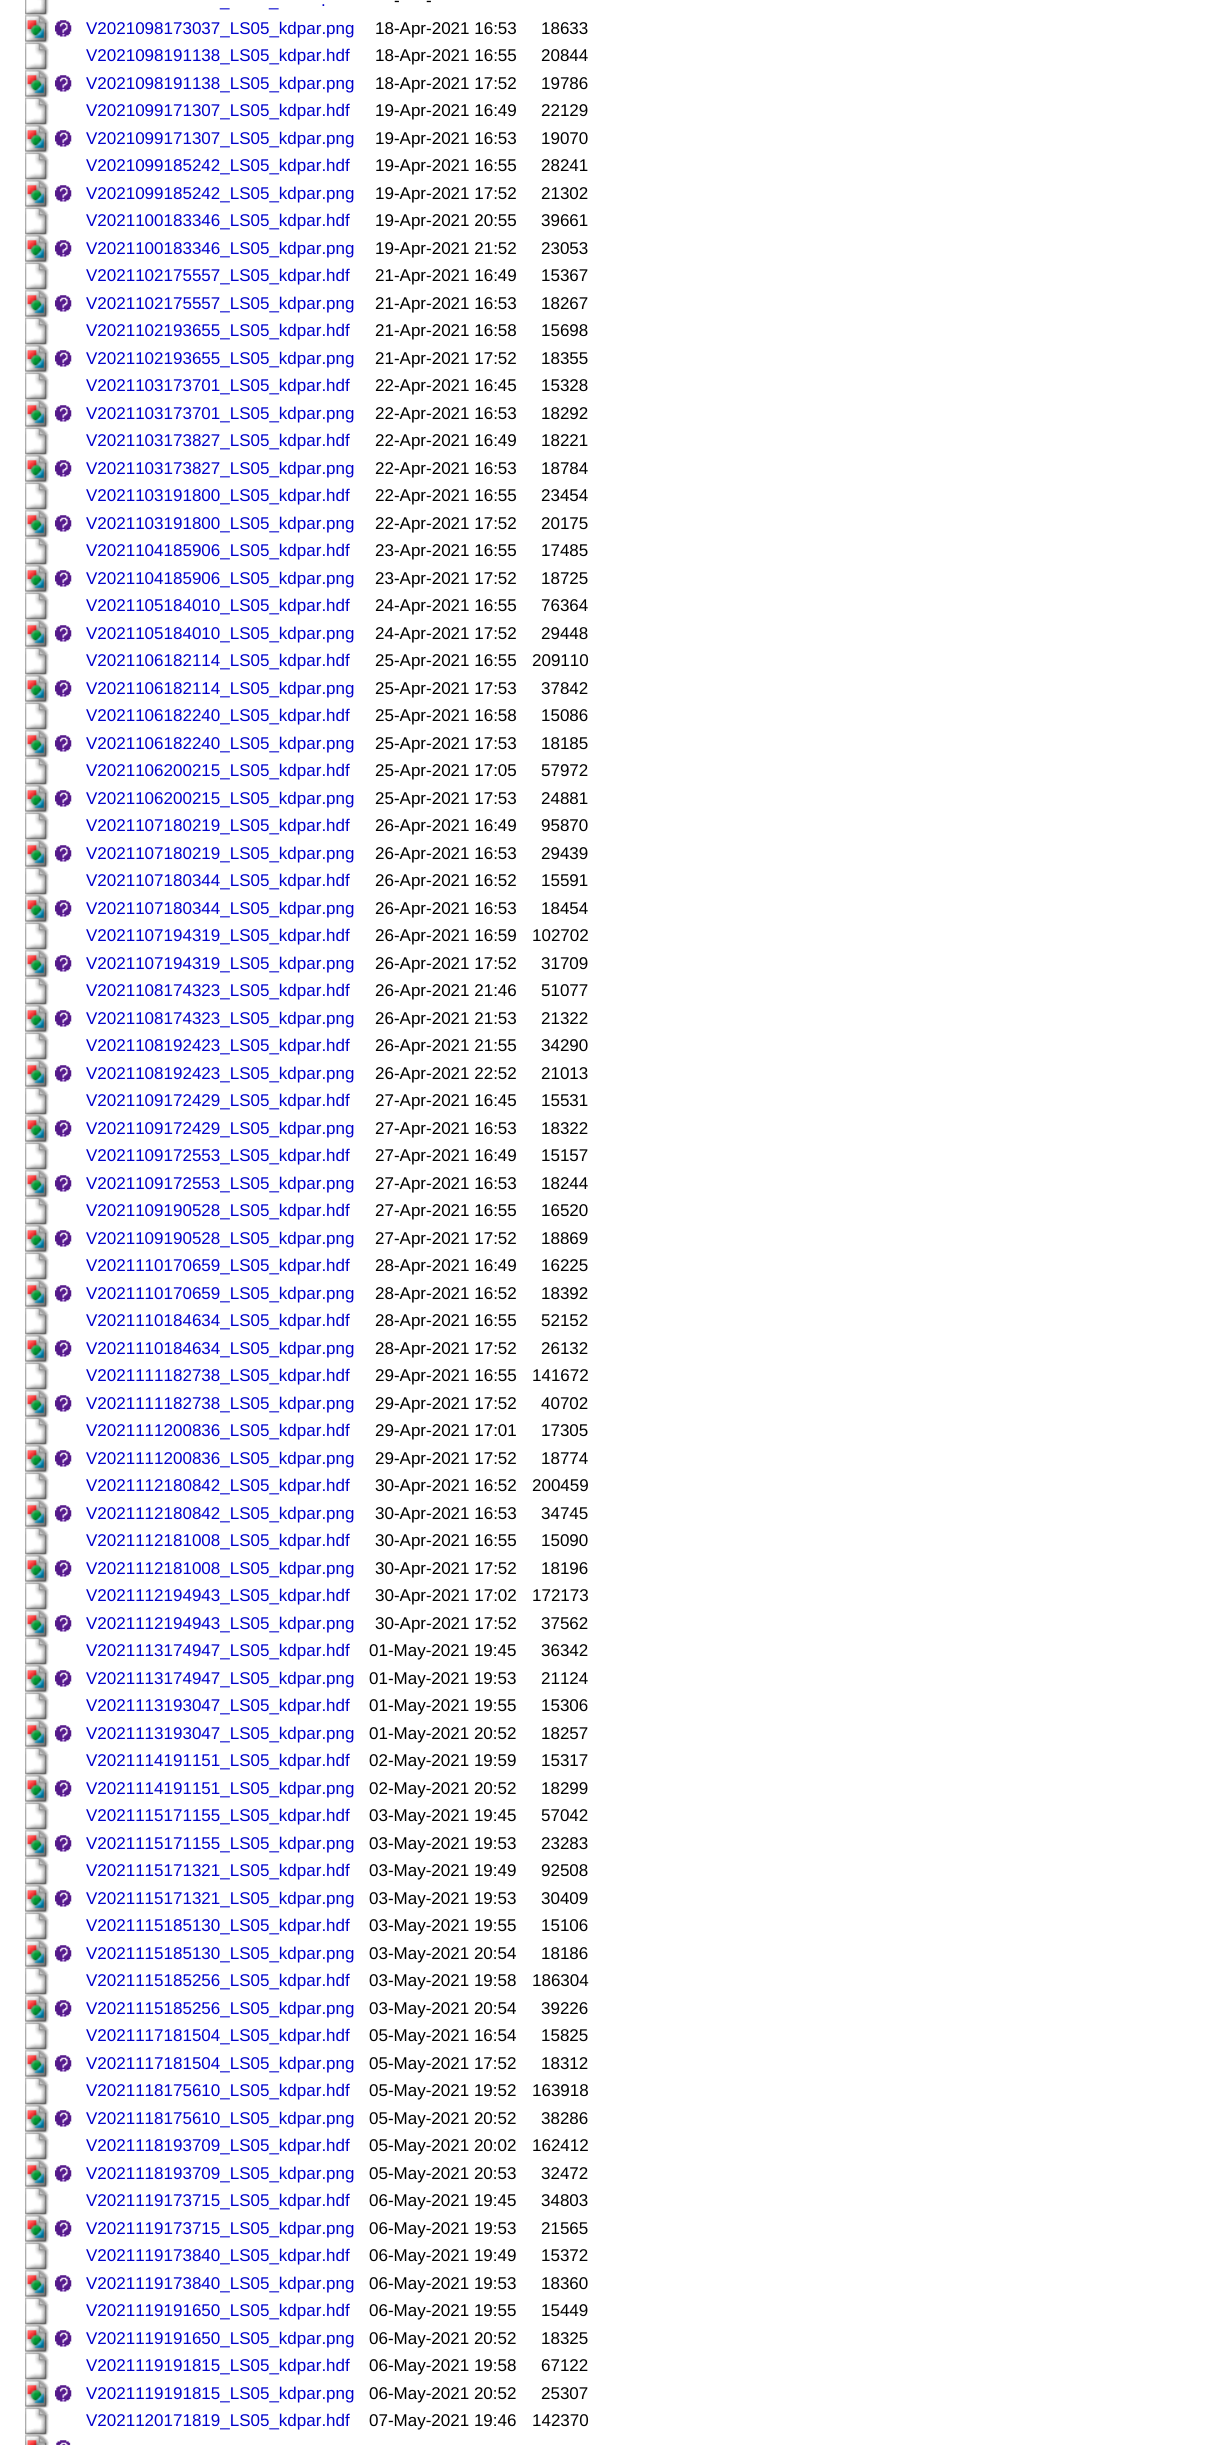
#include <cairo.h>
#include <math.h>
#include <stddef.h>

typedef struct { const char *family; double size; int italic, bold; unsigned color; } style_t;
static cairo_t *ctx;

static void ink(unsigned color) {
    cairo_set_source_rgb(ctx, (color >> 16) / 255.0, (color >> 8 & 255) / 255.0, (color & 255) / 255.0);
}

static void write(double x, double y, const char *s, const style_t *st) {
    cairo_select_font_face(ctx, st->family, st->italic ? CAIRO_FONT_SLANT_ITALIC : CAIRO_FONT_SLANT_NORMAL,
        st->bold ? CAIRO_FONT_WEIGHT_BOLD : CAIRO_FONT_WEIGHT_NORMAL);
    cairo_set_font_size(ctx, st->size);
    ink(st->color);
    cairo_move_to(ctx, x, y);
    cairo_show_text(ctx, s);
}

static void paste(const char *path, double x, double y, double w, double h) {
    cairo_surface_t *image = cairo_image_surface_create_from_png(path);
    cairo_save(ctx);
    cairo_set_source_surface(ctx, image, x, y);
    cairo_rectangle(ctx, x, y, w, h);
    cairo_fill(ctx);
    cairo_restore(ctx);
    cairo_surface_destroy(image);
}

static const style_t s1 = {"Liberation Sans", 17, 0, 0, 0x000000};
static const style_t s2 = {"Liberation Sans", 17, 0, 0, 0x0000cc};

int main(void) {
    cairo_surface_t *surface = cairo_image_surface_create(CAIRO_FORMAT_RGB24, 1220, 2445);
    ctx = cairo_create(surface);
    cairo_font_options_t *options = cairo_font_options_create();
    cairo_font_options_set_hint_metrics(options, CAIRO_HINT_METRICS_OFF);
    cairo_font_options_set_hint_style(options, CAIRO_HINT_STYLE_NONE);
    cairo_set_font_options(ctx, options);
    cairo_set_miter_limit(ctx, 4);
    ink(0xffffff);
    cairo_paint(ctx);
    paste("pic1.png", 25, 0, 24, 16);
    write(394, 6, "-", &s1);
    write(426, 6, "-", &s1);
    write(321, 6, ".", &s2);
    write(220, 6, "_", &s2);
    write(269, 6, "_", &s2);
    paste("pic2.png", 25, 15, 24, 28);
    paste("pic3.png", 55, 20, 17, 17);
    write(86, 34, "V2021098173037_LS05_kdpar.png", &s2);
    write(375, 34, "18-Apr-2021 16:53", &s1);
    write(541, 34, "18633", &s1);
    paste("pic4.png", 25, 42, 24, 29);
    write(86, 61, "V2021098191138_LS05_kdpar.hdf", &s2);
    write(375, 61, "18-Apr-2021 16:55", &s1);
    write(541, 61, "20844", &s1);
    paste("pic2.png", 25, 70, 24, 28);
    paste("pic3.png", 55, 75, 17, 17);
    write(86, 89, "V2021098191138_LS05_kdpar.png", &s2);
    write(375, 89, "18-Apr-2021 17:52", &s1);
    write(541, 89, "19786", &s1);
    paste("pic4.png", 25, 97, 24, 29);
    write(86, 116, "V2021099171307_LS05_kdpar.hdf", &s2);
    write(375, 116, "19-Apr-2021 16:49", &s1);
    write(541, 116, "22129", &s1);
    paste("pic2.png", 25, 125, 24, 28);
    paste("pic3.png", 55, 130, 17, 17);
    write(86, 144, "V2021099171307_LS05_kdpar.png", &s2);
    write(375, 144, "19-Apr-2021 16:53", &s1);
    write(541, 144, "19070", &s1);
    paste("pic4.png", 25, 152, 24, 29);
    write(86, 171, "V2021099185242_LS05_kdpar.hdf", &s2);
    write(375, 171, "19-Apr-2021 16:55", &s1);
    write(541, 171, "28241", &s1);
    paste("pic2.png", 25, 180, 24, 28);
    paste("pic3.png", 55, 185, 17, 17);
    write(86, 199, "V2021099185242_LS05_kdpar.png", &s2);
    write(375, 199, "19-Apr-2021 17:52", &s1);
    write(541, 199, "21302", &s1);
    paste("pic4.png", 25, 207, 24, 29);
    write(86, 226, "V2021100183346_LS05_kdpar.hdf", &s2);
    write(375, 226, "19-Apr-2021 20:55", &s1);
    write(541, 226, "39661", &s1);
    paste("pic5.png", 25, 235, 24, 28);
    paste("pic3.png", 55, 240, 17, 17);
    write(86, 254, "V2021100183346_LS05_kdpar.png", &s2);
    write(375, 254, "19-Apr-2021 21:52", &s1);
    write(541, 254, "23053", &s1);
    paste("pic4.png", 25, 262, 24, 29);
    write(86, 281, "V2021102175557_LS05_kdpar.hdf", &s2);
    write(375, 281, "21-Apr-2021 16:49", &s1);
    write(541, 281, "15367", &s1);
    paste("pic2.png", 25, 290, 24, 28);
    paste("pic3.png", 55, 295, 17, 17);
    write(86, 309, "V2021102175557_LS05_kdpar.png", &s2);
    write(375, 309, "21-Apr-2021 16:53", &s1);
    write(541, 309, "18267", &s1);
    paste("pic4.png", 25, 317, 24, 29);
    write(86, 336, "V2021102193655_LS05_kdpar.hdf", &s2);
    write(375, 336, "21-Apr-2021 16:58", &s1);
    write(541, 336, "15698", &s1);
    paste("pic2.png", 25, 345, 24, 28);
    paste("pic3.png", 55, 350, 17, 17);
    write(86, 364, "V2021102193655_LS05_kdpar.png", &s2);
    write(375, 364, "21-Apr-2021 17:52", &s1);
    write(541, 364, "18355", &s1);
    paste("pic4.png", 25, 372, 24, 29);
    write(86, 391, "V2021103173701_LS05_kdpar.hdf", &s2);
    write(375, 391, "22-Apr-2021 16:45", &s1);
    write(541, 391, "15328", &s1);
    paste("pic2.png", 25, 400, 24, 28);
    paste("pic3.png", 55, 405, 17, 17);
    write(86, 419, "V2021103173701_LS05_kdpar.png", &s2);
    write(375, 419, "22-Apr-2021 16:53", &s1);
    write(541, 419, "18292", &s1);
    paste("pic4.png", 25, 427, 24, 29);
    write(86, 446, "V2021103173827_LS05_kdpar.hdf", &s2);
    write(375, 446, "22-Apr-2021 16:49", &s1);
    write(541, 446, "18221", &s1);
    paste("pic2.png", 25, 455, 24, 28);
    paste("pic3.png", 55, 460, 17, 17);
    write(86, 474, "V2021103173827_LS05_kdpar.png", &s2);
    write(375, 474, "22-Apr-2021 16:53", &s1);
    write(541, 474, "18784", &s1);
    paste("pic4.png", 25, 482, 24, 29);
    write(86, 501, "V2021103191800_LS05_kdpar.hdf", &s2);
    write(375, 501, "22-Apr-2021 16:55", &s1);
    write(541, 501, "23454", &s1);
    paste("pic2.png", 25, 510, 24, 28);
    paste("pic3.png", 55, 515, 17, 17);
    write(86, 529, "V2021103191800_LS05_kdpar.png", &s2);
    write(375, 529, "22-Apr-2021 17:52", &s1);
    write(541, 529, "20175", &s1);
    paste("pic6.png", 25, 537, 24, 29);
    write(86, 556, "V2021104185906_LS05_kdpar.hdf", &s2);
    write(375, 556, "23-Apr-2021 16:55", &s1);
    write(541, 556, "17485", &s1);
    paste("pic2.png", 25, 565, 24, 28);
    paste("pic3.png", 55, 570, 17, 17);
    write(86, 584, "V2021104185906_LS05_kdpar.png", &s2);
    write(375, 584, "23-Apr-2021 17:52", &s1);
    write(541, 584, "18725", &s1);
    paste("pic4.png", 25, 592, 24, 29);
    write(86, 611, "V2021105184010_LS05_kdpar.hdf", &s2);
    write(375, 611, "24-Apr-2021 16:55", &s1);
    write(541, 611, "76364", &s1);
    paste("pic2.png", 25, 620, 24, 28);
    paste("pic3.png", 55, 625, 17, 17);
    write(86, 639, "V2021105184010_LS05_kdpar.png", &s2);
    write(375, 639, "24-Apr-2021 17:52", &s1);
    write(541, 639, "29448", &s1);
    paste("pic4.png", 25, 647, 24, 29);
    write(86, 666, "V2021106182114_LS05_kdpar.hdf", &s2);
    write(375, 666, "25-Apr-2021 16:55", &s1);
    write(532, 666, "209110", &s1);
    paste("pic2.png", 25, 675, 24, 28);
    paste("pic3.png", 55, 680, 17, 17);
    write(86, 694, "V2021106182114_LS05_kdpar.png", &s2);
    write(375, 694, "25-Apr-2021 17:53", &s1);
    write(541, 694, "37842", &s1);
    paste("pic4.png", 25, 702, 24, 29);
    write(86, 721, "V2021106182240_LS05_kdpar.hdf", &s2);
    write(375, 721, "25-Apr-2021 16:58", &s1);
    write(541, 721, "15086", &s1);
    paste("pic2.png", 25, 730, 24, 28);
    paste("pic7.png", 55, 735, 17, 17);
    write(86, 749, "V2021106182240_LS05_kdpar.png", &s2);
    write(375, 749, "25-Apr-2021 17:53", &s1);
    write(541, 749, "18185", &s1);
    paste("pic4.png", 25, 757, 24, 29);
    write(86, 776, "V2021106200215_LS05_kdpar.hdf", &s2);
    write(375, 776, "25-Apr-2021 17:05", &s1);
    write(541, 776, "57972", &s1);
    paste("pic2.png", 25, 785, 24, 28);
    paste("pic3.png", 55, 790, 17, 17);
    write(86, 804, "V2021106200215_LS05_kdpar.png", &s2);
    write(375, 804, "25-Apr-2021 17:53", &s1);
    write(541, 804, "24881", &s1);
    paste("pic4.png", 25, 812, 24, 29);
    write(86, 831, "V2021107180219_LS05_kdpar.hdf", &s2);
    write(375, 831, "26-Apr-2021 16:49", &s1);
    write(541, 831, "95870", &s1);
    paste("pic2.png", 25, 840, 24, 28);
    paste("pic3.png", 55, 845, 17, 17);
    write(86, 859, "V2021107180219_LS05_kdpar.png", &s2);
    write(375, 859, "26-Apr-2021 16:53", &s1);
    write(541, 859, "29439", &s1);
    paste("pic4.png", 25, 867, 24, 29);
    write(86, 886, "V2021107180344_LS05_kdpar.hdf", &s2);
    write(375, 886, "26-Apr-2021 16:52", &s1);
    write(541, 886, "15591", &s1);
    paste("pic2.png", 25, 895, 24, 28);
    paste("pic3.png", 55, 900, 17, 17);
    write(86, 914, "V2021107180344_LS05_kdpar.png", &s2);
    write(375, 914, "26-Apr-2021 16:53", &s1);
    write(541, 914, "18454", &s1);
    paste("pic4.png", 25, 922, 24, 29);
    write(86, 941, "V2021107194319_LS05_kdpar.hdf", &s2);
    write(375, 941, "26-Apr-2021 16:59", &s1);
    write(532, 941, "102702", &s1);
    paste("pic2.png", 25, 950, 24, 28);
    paste("pic3.png", 55, 955, 17, 17);
    write(86, 969, "V2021107194319_LS05_kdpar.png", &s2);
    write(375, 969, "26-Apr-2021 17:52", &s1);
    write(541, 969, "31709", &s1);
    paste("pic4.png", 25, 977, 24, 29);
    write(86, 996, "V2021108174323_LS05_kdpar.hdf", &s2);
    write(375, 996, "26-Apr-2021 21:46", &s1);
    write(541, 996, "51077", &s1);
    paste("pic2.png", 25, 1005, 24, 28);
    paste("pic3.png", 55, 1010, 17, 17);
    write(86, 1024, "V2021108174323_LS05_kdpar.png", &s2);
    write(375, 1024, "26-Apr-2021 21:53", &s1);
    write(541, 1024, "21322", &s1);
    paste("pic4.png", 25, 1032, 24, 29);
    write(86, 1051, "V2021108192423_LS05_kdpar.hdf", &s2);
    write(375, 1051, "26-Apr-2021 21:55", &s1);
    write(541, 1051, "34290", &s1);
    paste("pic2.png", 25, 1060, 24, 28);
    paste("pic3.png", 55, 1065, 17, 17);
    write(86, 1079, "V2021108192423_LS05_kdpar.png", &s2);
    write(375, 1079, "26-Apr-2021 22:52", &s1);
    write(541, 1079, "21013", &s1);
    paste("pic4.png", 25, 1087, 24, 29);
    write(86, 1106, "V2021109172429_LS05_kdpar.hdf", &s2);
    write(375, 1106, "27-Apr-2021 16:45", &s1);
    write(541, 1106, "15531", &s1);
    paste("pic5.png", 25, 1115, 24, 28);
    paste("pic3.png", 55, 1120, 17, 17);
    write(86, 1134, "V2021109172429_LS05_kdpar.png", &s2);
    write(375, 1134, "27-Apr-2021 16:53", &s1);
    write(541, 1134, "18322", &s1);
    paste("pic4.png", 25, 1142, 24, 29);
    write(86, 1161, "V2021109172553_LS05_kdpar.hdf", &s2);
    write(375, 1161, "27-Apr-2021 16:49", &s1);
    write(541, 1161, "15157", &s1);
    paste("pic2.png", 25, 1170, 24, 28);
    paste("pic3.png", 55, 1175, 17, 17);
    write(86, 1189, "V2021109172553_LS05_kdpar.png", &s2);
    write(375, 1189, "27-Apr-2021 16:53", &s1);
    write(541, 1189, "18244", &s1);
    paste("pic4.png", 25, 1197, 24, 29);
    write(86, 1216, "V2021109190528_LS05_kdpar.hdf", &s2);
    write(375, 1216, "27-Apr-2021 16:55", &s1);
    write(541, 1216, "16520", &s1);
    paste("pic2.png", 25, 1225, 24, 28);
    paste("pic3.png", 55, 1230, 17, 17);
    write(86, 1244, "V2021109190528_LS05_kdpar.png", &s2);
    write(375, 1244, "27-Apr-2021 17:52", &s1);
    write(541, 1244, "18869", &s1);
    paste("pic4.png", 25, 1252, 24, 29);
    write(86, 1271, "V2021110170659_LS05_kdpar.hdf", &s2);
    write(375, 1271, "28-Apr-2021 16:49", &s1);
    write(541, 1271, "16225", &s1);
    paste("pic2.png", 25, 1280, 24, 28);
    paste("pic3.png", 55, 1285, 17, 17);
    write(86, 1299, "V2021110170659_LS05_kdpar.png", &s2);
    write(375, 1299, "28-Apr-2021 16:52", &s1);
    write(541, 1299, "18392", &s1);
    paste("pic4.png", 25, 1307, 24, 29);
    write(86, 1326, "V2021110184634_LS05_kdpar.hdf", &s2);
    write(375, 1326, "28-Apr-2021 16:55", &s1);
    write(541, 1326, "52152", &s1);
    paste("pic2.png", 25, 1335, 24, 28);
    paste("pic3.png", 55, 1340, 17, 17);
    write(86, 1354, "V2021110184634_LS05_kdpar.png", &s2);
    write(375, 1354, "28-Apr-2021 17:52", &s1);
    write(541, 1354, "26132", &s1);
    paste("pic4.png", 25, 1362, 24, 29);
    write(86, 1381, "V2021111182738_LS05_kdpar.hdf", &s2);
    write(375, 1381, "29-Apr-2021 16:55", &s1);
    write(532, 1381, "141672", &s1);
    paste("pic2.png", 25, 1390, 24, 28);
    paste("pic3.png", 55, 1395, 17, 17);
    write(86, 1409, "V2021111182738_LS05_kdpar.png", &s2);
    write(375, 1409, "29-Apr-2021 17:52", &s1);
    write(541, 1409, "40702", &s1);
    paste("pic4.png", 25, 1417, 24, 29);
    write(86, 1436, "V2021111200836_LS05_kdpar.hdf", &s2);
    write(375, 1436, "29-Apr-2021 17:01", &s1);
    write(541, 1436, "17305", &s1);
    paste("pic2.png", 25, 1445, 24, 28);
    paste("pic3.png", 55, 1450, 17, 17);
    write(86, 1464, "V2021111200836_LS05_kdpar.png", &s2);
    write(375, 1464, "29-Apr-2021 17:52", &s1);
    write(541, 1464, "18774", &s1);
    paste("pic4.png", 25, 1472, 24, 29);
    write(86, 1491, "V2021112180842_LS05_kdpar.hdf", &s2);
    write(375, 1491, "30-Apr-2021 16:52", &s1);
    write(532, 1491, "200459", &s1);
    paste("pic2.png", 25, 1500, 24, 28);
    paste("pic3.png", 55, 1505, 17, 17);
    write(86, 1519, "V2021112180842_LS05_kdpar.png", &s2);
    write(375, 1519, "30-Apr-2021 16:53", &s1);
    write(541, 1519, "34745", &s1);
    paste("pic4.png", 25, 1527, 24, 29);
    write(86, 1546, "V2021112181008_LS05_kdpar.hdf", &s2);
    write(375, 1546, "30-Apr-2021 16:55", &s1);
    write(541, 1546, "15090", &s1);
    paste("pic2.png", 25, 1555, 24, 28);
    paste("pic3.png", 55, 1560, 17, 17);
    write(86, 1574, "V2021112181008_LS05_kdpar.png", &s2);
    write(375, 1574, "30-Apr-2021 17:52", &s1);
    write(541, 1574, "18196", &s1);
    paste("pic4.png", 25, 1582, 24, 29);
    write(86, 1601, "V2021112194943_LS05_kdpar.hdf", &s2);
    write(375, 1601, "30-Apr-2021 17:02", &s1);
    write(532, 1601, "172173", &s1);
    paste("pic2.png", 25, 1610, 24, 28);
    paste("pic3.png", 55, 1615, 17, 17);
    write(86, 1629, "V2021112194943_LS05_kdpar.png", &s2);
    write(375, 1629, "30-Apr-2021 17:52", &s1);
    write(541, 1629, "37562", &s1);
    paste("pic4.png", 25, 1637, 24, 29);
    write(86, 1656, "V2021113174947_LS05_kdpar.hdf", &s2);
    write(369, 1656, "01-May-2021 19:45", &s1);
    write(541, 1656, "36342", &s1);
    paste("pic2.png", 25, 1665, 24, 28);
    paste("pic3.png", 55, 1670, 17, 17);
    write(86, 1684, "V2021113174947_LS05_kdpar.png", &s2);
    write(369, 1684, "01-May-2021 19:53", &s1);
    write(541, 1684, "21124", &s1);
    paste("pic4.png", 25, 1692, 24, 29);
    write(86, 1711, "V2021113193047_LS05_kdpar.hdf", &s2);
    write(369, 1711, "01-May-2021 19:55", &s1);
    write(541, 1711, "15306", &s1);
    paste("pic2.png", 25, 1720, 24, 28);
    paste("pic3.png", 55, 1725, 17, 17);
    write(86, 1739, "V2021113193047_LS05_kdpar.png", &s2);
    write(369, 1739, "01-May-2021 20:52", &s1);
    write(541, 1739, "18257", &s1);
    paste("pic4.png", 25, 1747, 24, 29);
    write(86, 1766, "V2021114191151_LS05_kdpar.hdf", &s2);
    write(369, 1766, "02-May-2021 19:59", &s1);
    write(541, 1766, "15317", &s1);
    paste("pic2.png", 25, 1775, 24, 28);
    paste("pic3.png", 55, 1780, 17, 17);
    write(86, 1794, "V2021114191151_LS05_kdpar.png", &s2);
    write(369, 1794, "02-May-2021 20:52", &s1);
    write(541, 1794, "18299", &s1);
    paste("pic8.png", 25, 1802, 24, 29);
    write(86, 1821, "V2021115171155_LS05_kdpar.hdf", &s2);
    write(369, 1821, "03-May-2021 19:45", &s1);
    write(541, 1821, "57042", &s1);
    paste("pic2.png", 25, 1830, 24, 28);
    paste("pic3.png", 55, 1835, 17, 17);
    write(86, 1849, "V2021115171155_LS05_kdpar.png", &s2);
    write(369, 1849, "03-May-2021 19:53", &s1);
    write(541, 1849, "23283", &s1);
    paste("pic4.png", 25, 1857, 24, 29);
    write(86, 1876, "V2021115171321_LS05_kdpar.hdf", &s2);
    write(369, 1876, "03-May-2021 19:49", &s1);
    write(541, 1876, "92508", &s1);
    paste("pic2.png", 25, 1885, 24, 28);
    paste("pic3.png", 55, 1890, 17, 17);
    write(86, 1904, "V2021115171321_LS05_kdpar.png", &s2);
    write(369, 1904, "03-May-2021 19:53", &s1);
    write(541, 1904, "30409", &s1);
    paste("pic4.png", 25, 1912, 24, 29);
    write(86, 1931, "V2021115185130_LS05_kdpar.hdf", &s2);
    write(369, 1931, "03-May-2021 19:55", &s1);
    write(541, 1931, "15106", &s1);
    paste("pic2.png", 25, 1940, 24, 28);
    paste("pic3.png", 55, 1945, 17, 17);
    write(86, 1959, "V2021115185130_LS05_kdpar.png", &s2);
    write(369, 1959, "03-May-2021 20:54", &s1);
    write(541, 1959, "18186", &s1);
    paste("pic4.png", 25, 1967, 24, 29);
    write(86, 1986, "V2021115185256_LS05_kdpar.hdf", &s2);
    write(369, 1986, "03-May-2021 19:58", &s1);
    write(532, 1986, "186304", &s1);
    paste("pic2.png", 25, 1995, 24, 28);
    paste("pic3.png", 55, 2000, 17, 17);
    write(86, 2014, "V2021115185256_LS05_kdpar.png", &s2);
    write(369, 2014, "03-May-2021 20:54", &s1);
    write(541, 2014, "39226", &s1);
    paste("pic4.png", 25, 2022, 24, 29);
    write(86, 2041, "V2021117181504_LS05_kdpar.hdf", &s2);
    write(369, 2041, "05-May-2021 16:54", &s1);
    write(541, 2041, "15825", &s1);
    paste("pic2.png", 25, 2050, 24, 28);
    paste("pic3.png", 55, 2055, 17, 17);
    write(86, 2069, "V2021117181504_LS05_kdpar.png", &s2);
    write(369, 2069, "05-May-2021 17:52", &s1);
    write(541, 2069, "18312", &s1);
    paste("pic4.png", 25, 2077, 24, 29);
    write(86, 2096, "V2021118175610_LS05_kdpar.hdf", &s2);
    write(369, 2096, "05-May-2021 19:52", &s1);
    write(532, 2096, "163918", &s1);
    paste("pic2.png", 25, 2105, 24, 28);
    paste("pic3.png", 55, 2110, 17, 17);
    write(86, 2124, "V2021118175610_LS05_kdpar.png", &s2);
    write(369, 2124, "05-May-2021 20:52", &s1);
    write(541, 2124, "38286", &s1);
    paste("pic4.png", 25, 2132, 24, 29);
    write(86, 2151, "V2021118193709_LS05_kdpar.hdf", &s2);
    write(369, 2151, "05-May-2021 20:02", &s1);
    write(532, 2151, "162412", &s1);
    paste("pic2.png", 25, 2160, 24, 28);
    paste("pic3.png", 55, 2165, 17, 17);
    write(86, 2179, "V2021118193709_LS05_kdpar.png", &s2);
    write(369, 2179, "05-May-2021 20:53", &s1);
    write(541, 2179, "32472", &s1);
    paste("pic4.png", 25, 2187, 24, 29);
    write(86, 2206, "V2021119173715_LS05_kdpar.hdf", &s2);
    write(369, 2206, "06-May-2021 19:45", &s1);
    write(541, 2206, "34803", &s1);
    paste("pic2.png", 25, 2215, 24, 28);
    paste("pic3.png", 55, 2220, 17, 17);
    write(86, 2234, "V2021119173715_LS05_kdpar.png", &s2);
    write(369, 2234, "06-May-2021 19:53", &s1);
    write(541, 2234, "21565", &s1);
    paste("pic4.png", 25, 2242, 24, 29);
    write(86, 2261, "V2021119173840_LS05_kdpar.hdf", &s2);
    write(369, 2261, "06-May-2021 19:49", &s1);
    write(541, 2261, "15372", &s1);
    paste("pic2.png", 25, 2270, 24, 28);
    paste("pic3.png", 55, 2275, 17, 17);
    write(86, 2289, "V2021119173840_LS05_kdpar.png", &s2);
    write(369, 2289, "06-May-2021 19:53", &s1);
    write(541, 2289, "18360", &s1);
    paste("pic4.png", 25, 2297, 24, 29);
    write(86, 2316, "V2021119191650_LS05_kdpar.hdf", &s2);
    write(369, 2316, "06-May-2021 19:55", &s1);
    write(541, 2316, "15449", &s1);
    paste("pic2.png", 25, 2325, 24, 28);
    paste("pic3.png", 55, 2330, 17, 17);
    write(86, 2344, "V2021119191650_LS05_kdpar.png", &s2);
    write(369, 2344, "06-May-2021 20:52", &s1);
    write(541, 2344, "18325", &s1);
    paste("pic4.png", 25, 2352, 24, 29);
    write(86, 2371, "V2021119191815_LS05_kdpar.hdf", &s2);
    write(369, 2371, "06-May-2021 19:58", &s1);
    write(541, 2371, "67122", &s1);
    paste("pic9.png", 25, 2380, 24, 28);
    paste("pic3.png", 55, 2385, 17, 17);
    write(86, 2399, "V2021119191815_LS05_kdpar.png", &s2);
    write(369, 2399, "06-May-2021 20:52", &s1);
    write(541, 2399, "25307", &s1);
    paste("pic4.png", 25, 2407, 24, 29);
    write(86, 2426, "V2021120171819_LS05_kdpar.hdf", &s2);
    write(369, 2426, "07-May-2021 19:46", &s1);
    write(532, 2426, "142370", &s1);
    paste("pic10.png", 25, 2435, 24, 10);
    paste("pic11.png", 56, 2440, 15, 5);
    cairo_surface_write_to_png(surface, "screenshot.png");
    cairo_font_options_destroy(options);
    cairo_destroy(ctx);
    cairo_surface_destroy(surface);
    return 0;
}
